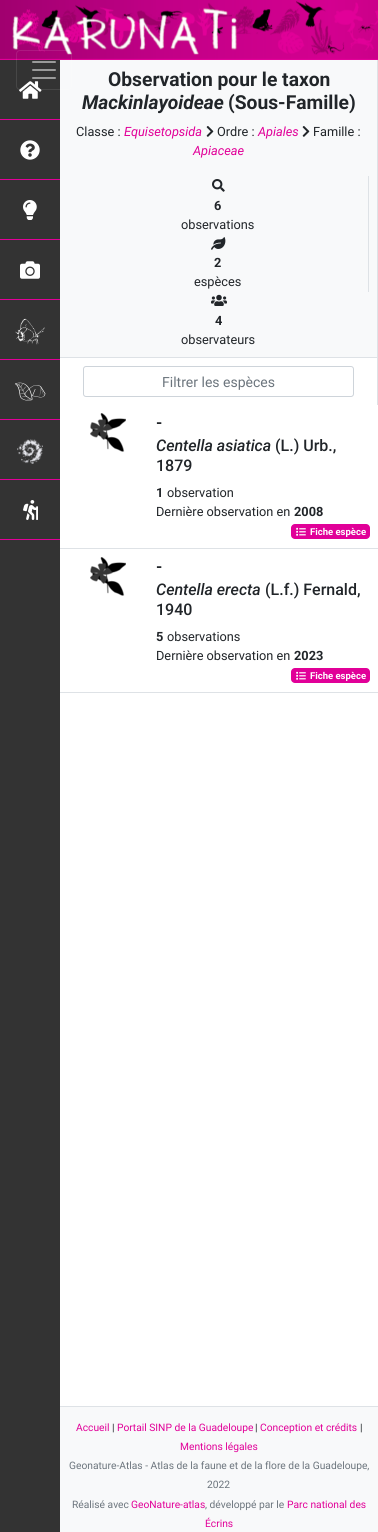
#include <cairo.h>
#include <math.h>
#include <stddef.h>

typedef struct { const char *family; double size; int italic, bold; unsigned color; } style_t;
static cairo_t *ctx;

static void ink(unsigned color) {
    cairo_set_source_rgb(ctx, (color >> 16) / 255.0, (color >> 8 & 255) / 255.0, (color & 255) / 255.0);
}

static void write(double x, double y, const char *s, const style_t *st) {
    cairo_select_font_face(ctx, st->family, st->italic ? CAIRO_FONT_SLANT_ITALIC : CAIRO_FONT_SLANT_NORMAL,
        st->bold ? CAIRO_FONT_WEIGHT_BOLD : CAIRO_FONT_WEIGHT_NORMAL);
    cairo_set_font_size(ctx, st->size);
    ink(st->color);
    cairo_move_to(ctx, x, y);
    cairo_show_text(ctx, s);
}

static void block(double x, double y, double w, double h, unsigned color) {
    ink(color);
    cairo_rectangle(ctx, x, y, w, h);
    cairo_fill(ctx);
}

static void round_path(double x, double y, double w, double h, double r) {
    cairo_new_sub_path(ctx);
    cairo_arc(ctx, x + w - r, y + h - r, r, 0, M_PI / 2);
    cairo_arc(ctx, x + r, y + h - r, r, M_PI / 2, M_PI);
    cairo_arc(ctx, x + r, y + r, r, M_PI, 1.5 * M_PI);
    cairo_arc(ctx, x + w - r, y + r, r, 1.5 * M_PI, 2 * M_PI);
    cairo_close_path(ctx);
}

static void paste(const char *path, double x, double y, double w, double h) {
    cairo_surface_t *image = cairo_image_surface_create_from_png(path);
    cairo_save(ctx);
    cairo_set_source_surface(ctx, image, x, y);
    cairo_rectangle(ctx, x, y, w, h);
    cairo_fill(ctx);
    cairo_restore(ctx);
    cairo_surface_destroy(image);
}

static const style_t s1 = {"Roboto", 19.25, 0, 1, 0x212529};
static const style_t s2 = {"Roboto", 19.25, 1, 1, 0x212529};
static const style_t s3 = {"Roboto", 12.75, 0, 0, 0x212529};
static const style_t s4 = {"Roboto", 12.75, 1, 0, 0xe10098};
static const style_t s5 = {"Roboto", 12.75, 0, 1, 0x212529};
static const style_t s6 = {"Roboto", 14, 0, 0, 0x6c757d};
static const style_t s7 = {"Roboto", 16, 0, 1, 0x212529};
static const style_t s8 = {"Roboto Medium", 16, 1, 0, 0x212529};
static const style_t s9 = {"Roboto Medium", 16, 0, 0, 0x212529};
static const style_t s10 = {"Roboto", 9.5, 0, 1, 0xffffff};
static const style_t s11 = {"Roboto", 10.25, 0, 0, 0xe10098};
static const style_t s12 = {"Roboto", 10.25, 0, 0, 0x212529};
static const style_t s13 = {"Roboto", 10.25, 0, 0, 0x6c757d};

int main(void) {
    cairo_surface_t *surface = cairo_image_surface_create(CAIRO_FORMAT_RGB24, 378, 1532);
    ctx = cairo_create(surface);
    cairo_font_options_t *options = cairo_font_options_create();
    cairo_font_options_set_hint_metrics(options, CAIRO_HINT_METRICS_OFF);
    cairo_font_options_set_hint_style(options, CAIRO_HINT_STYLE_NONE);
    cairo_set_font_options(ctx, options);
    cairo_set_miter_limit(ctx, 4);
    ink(0xdee2e6);
    cairo_paint(ctx);
    block(0, 58, 378, 2, 0xe10098);
    paste("pic1.png", 0, 0, 378, 59);
    block(0, 60, 60, 1472, 0x333333);
    paste("pic3.png", 19, 81, 23, 18);
    block(60, 60, 317, 297, 0xf8f9fa);
    round_path(16.5, 50.5, 55, 39, 3.5);
    cairo_set_source_rgba(ctx, 1, 1, 1, 0.1);
    cairo_set_line_width(ctx, 1);
    cairo_stroke(ctx);
    paste("pic2.png", 32, 61, 24, 18);
    block(0, 119, 60, 1, 0xe10098);
    block(0, 179, 60, 1, 0xe10098);
    paste("pic4.png", 20, 140, 20, 20);
    block(0, 239, 60, 1, 0xe10098);
    paste("pic5.png", 23, 200, 14, 20);
    block(0, 299, 60, 1, 0xe10098);
    paste("pic6.png", 20, 261, 20, 18);
    block(0, 359, 60, 1, 0xe10098);
    paste("pic7.png", 15, 318, 30, 27);
    block(0, 419, 60, 1, 0xe10098);
    paste("pic8.png", 15, 382, 31, 19);
    block(0, 479, 60, 1, 0xe10098);
    paste("pic9.png", 17, 439, 26, 25);
    block(0, 539, 60, 1, 0xe10098);
    paste("pic10.png", 23, 500, 15, 20);
    write(108, 86, "Observation pour le taxon", &s1);
    write(82, 109, "Mackinlayoideae", &s2);
    write(228, 109, "(Sous-Famille)", &s1);
    write(76, 136, "Classe :", &s3);
    write(124, 136, "Equisetopsida", &s4);
    paste("pic11.png", 206, 126, 8, 11);
    write(217, 136, "Ordre :", &s3);
    write(258, 136, "Apiales", &s4);
    paste("pic11.png", 302, 126, 8, 11);
    write(313, 136, "Famille :", &s3);
    write(193, 155, "Apiaceae", &s4);
    block(368, 176, 1, 116, 0xdee2e6);
    paste("pic12.png", 212, 179, 13, 13);
    write(214, 210, "6", &s5);
    write(181, 229, "observations", &s3);
    paste("pic13.png", 211, 237, 15, 13);
    write(214, 267, "2", &s5);
    write(194, 286, "espèces", &s3);
    paste("pic14.png", 211, 294, 16, 12);
    write(215, 325, "4", &s5);
    write(181, 344, "observateurs", &s3);
    block(60, 358, 317, 47, 0xffffff);
    round_path(83.5, 366.5, 270, 30, 2.5);
    ink(0xced4da);
    cairo_stroke(ctx);
    write(162, 387, "Filtrer les espèces", &s6);
    block(60, 405, 318, 1001, 0xffffff);
    block(60, 548, 318, 1, 0xdee2e6);
    paste("pic15.png", 90, 413, 36, 39);
    write(156, 428, "-", &s7);
    write(156, 451, "Centella asiatica", &s8);
    write(275, 451, "(L.) Urb.,", &s9);
    write(156, 471, "1879", &s9);
    write(156, 497, "1", &s5);
    write(167, 497, "observation", &s3);
    write(156, 516, "Dernière observation en", &s3);
    write(294, 516, "2008", &s5);
    ink(0xe10098);
    round_path(291, 524, 79, 15, 4);
    cairo_fill(ctx);
    paste("pic16.png", 296, 527, 10, 9);
    write(310, 535, "Fiche espèce", &s10);
    block(60, 692, 318, 1, 0xdee2e6);
    paste("pic15.png", 90, 557, 36, 39);
    write(156, 572, "-", &s7);
    write(156, 595, "Centella erecta", &s8);
    write(265, 595, "(L.f.) Fernald,", &s9);
    write(156, 615, "1940", &s9);
    write(156, 641, "5", &s5);
    write(167, 641, "observations", &s3);
    write(156, 660, "Dernière observation en", &s3);
    write(294, 660, "2023", &s5);
    ink(0xe10098);
    round_path(291, 668, 79, 15, 4);
    cairo_fill(ctx);
    paste("pic16.png", 296, 671, 10, 9);
    write(310, 679, "Fiche espèce", &s10);
    block(60, 1407, 318, 125, 0xf8f9fa);
    write(76, 1431, "Accueil", &s11);
    write(112, 1431, "|", &s12);
    write(117, 1431, "Portail SINP de la Guadeloupe", &s11);
    write(255, 1431, "|", &s12);
    write(260, 1431, "Conception et crédits", &s11);
    write(360, 1431, "|", &s12);
    write(180, 1450, "Mentions légales", &s11);
    write(69, 1469, "Geonature-Atlas - Atlas de la faune et de la flore de la Guadeloupe,", &s13);
    write(207, 1488, "2022", &s13);
    write(72, 1508, "Réalisé avec", &s13);
    write(131, 1508, "GeoNature-atlas", &s11);
    write(205, 1508, ", développé par le", &s13);
    write(287, 1508, "Parc national des", &s11);
    write(205, 1527, "Écrins", &s11);
    cairo_surface_write_to_png(surface, "screenshot.png");
    cairo_font_options_destroy(options);
    cairo_destroy(ctx);
    cairo_surface_destroy(surface);
    return 0;
}
